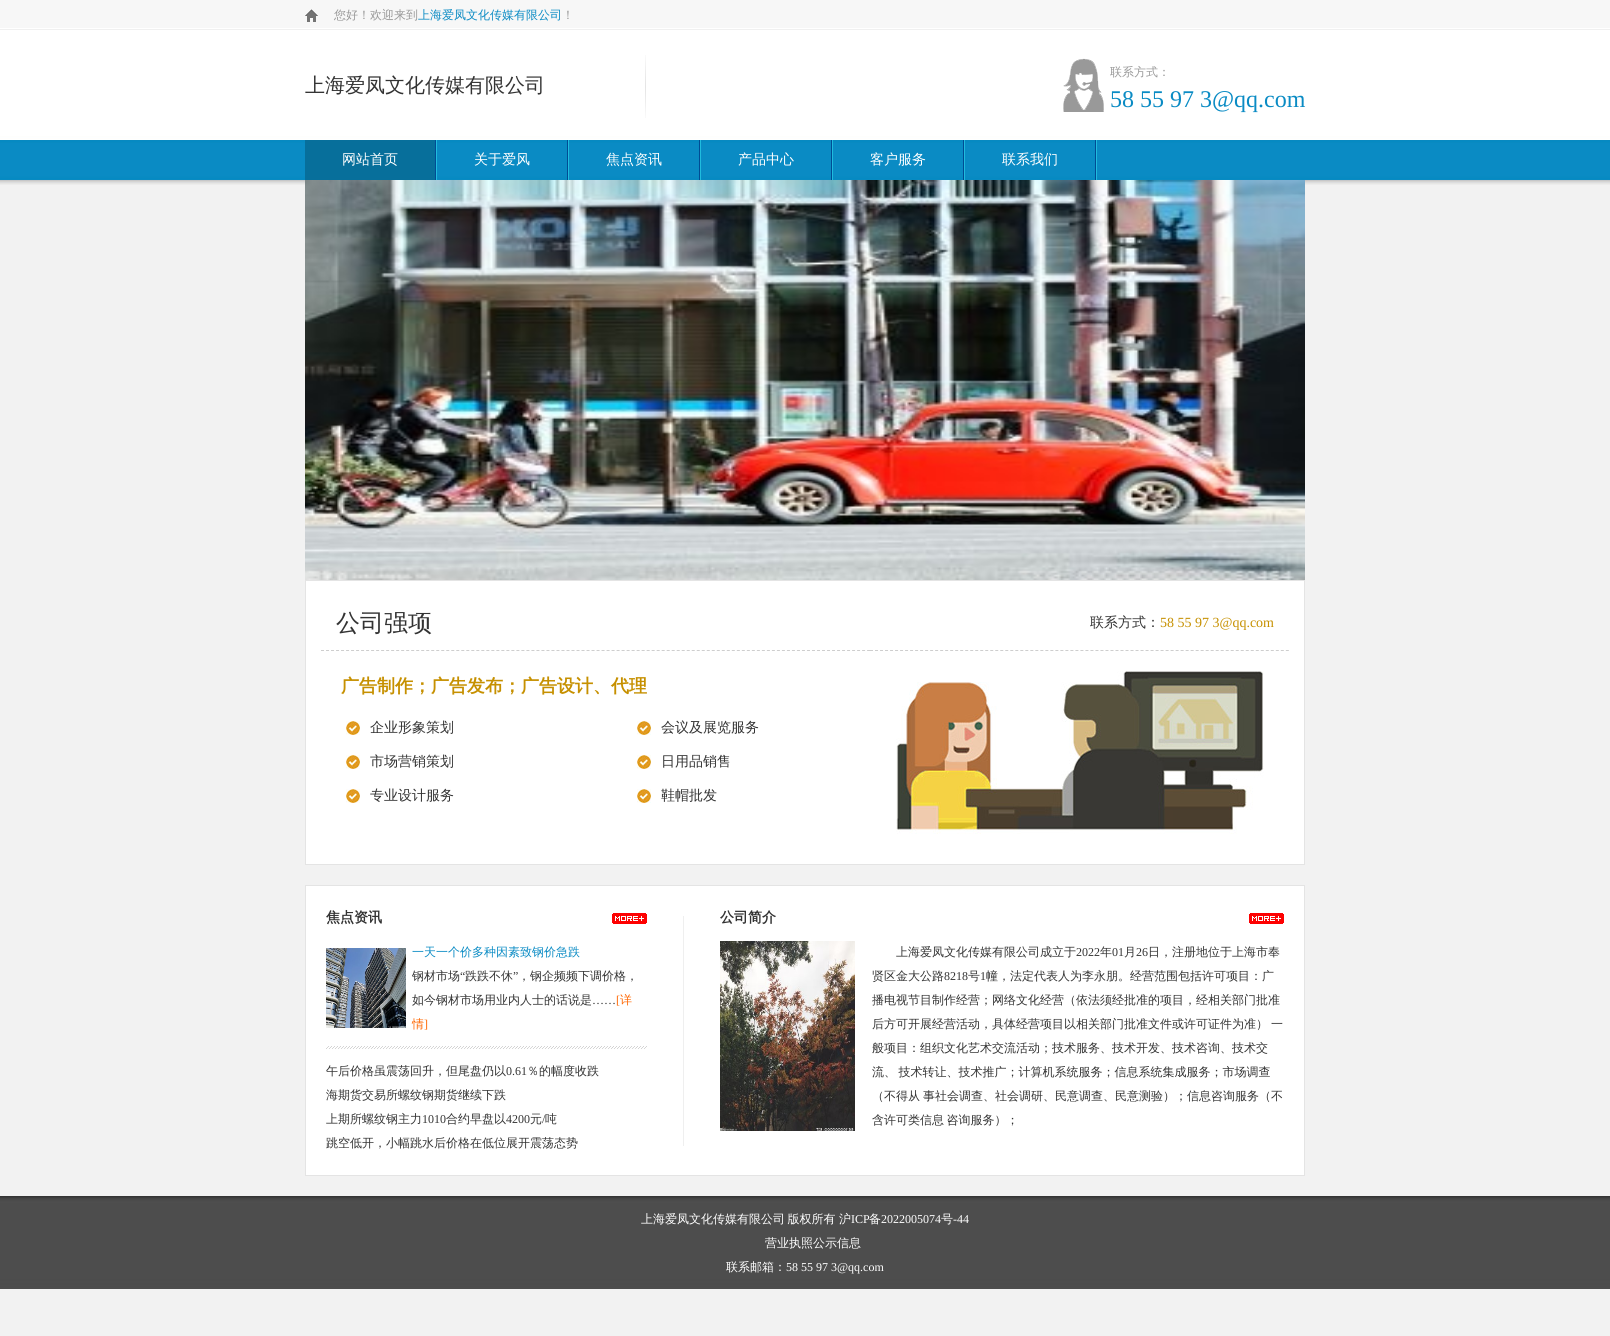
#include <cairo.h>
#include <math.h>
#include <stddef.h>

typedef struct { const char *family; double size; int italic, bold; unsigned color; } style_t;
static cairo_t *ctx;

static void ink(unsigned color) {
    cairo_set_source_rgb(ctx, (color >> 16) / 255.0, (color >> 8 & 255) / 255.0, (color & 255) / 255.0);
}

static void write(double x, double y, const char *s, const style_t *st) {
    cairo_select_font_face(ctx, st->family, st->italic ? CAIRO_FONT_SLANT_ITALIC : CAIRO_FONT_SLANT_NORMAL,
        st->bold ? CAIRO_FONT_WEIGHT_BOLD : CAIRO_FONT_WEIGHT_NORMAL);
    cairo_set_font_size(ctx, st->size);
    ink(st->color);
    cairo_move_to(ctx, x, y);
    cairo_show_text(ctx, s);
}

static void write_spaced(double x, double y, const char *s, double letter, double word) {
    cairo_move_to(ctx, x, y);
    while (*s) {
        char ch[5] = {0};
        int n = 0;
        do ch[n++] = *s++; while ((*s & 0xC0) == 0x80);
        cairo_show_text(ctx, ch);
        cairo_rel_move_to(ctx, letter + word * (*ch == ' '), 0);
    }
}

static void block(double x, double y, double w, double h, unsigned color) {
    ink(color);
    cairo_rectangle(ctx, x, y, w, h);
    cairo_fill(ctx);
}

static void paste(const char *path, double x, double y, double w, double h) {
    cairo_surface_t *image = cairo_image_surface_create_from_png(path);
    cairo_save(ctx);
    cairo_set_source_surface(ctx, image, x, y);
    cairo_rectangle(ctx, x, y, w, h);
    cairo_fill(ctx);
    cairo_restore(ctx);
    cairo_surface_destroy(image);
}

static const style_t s1 = {"WenQuanYi Zen Hei Medium", 12, 0, 0, 0x999999};
static const style_t s2 = {"WenQuanYi Zen Hei Medium", 12, 0, 0, 0x0a8bc4};
static const style_t s3 = {"WenQuanYi Zen Hei Medium", 20, 0, 0, 0x333333};
static const style_t s4 = {"Liberation Serif", 24, 0, 0, 0x0a8bc4};
static const style_t s5 = {"WenQuanYi Zen Hei Medium", 14, 0, 0, 0xffffff};
static const style_t s6 = {"WenQuanYi Zen Hei Medium", 24, 0, 0, 0x333333};
static const style_t s7 = {"WenQuanYi Zen Hei Medium", 14, 0, 0, 0x333333};
static const style_t s8 = {"Liberation Serif", 14, 0, 0, 0xc69000};
static const style_t s9 = {"WenQuanYi Zen Hei", 18, 0, 1, 0xc69000};
static const style_t s10 = {"WenQuanYi Zen Hei", 14, 0, 1, 0x333333};
static const style_t s11 = {"WenQuanYi Zen Hei Medium", 12, 0, 0, 0x333333};
static const style_t s12 = {"Liberation Serif", 12, 0, 0, 0x333333};
static const style_t s13 = {"Liberation Serif", 12, 0, 0, 0xff6600};
static const style_t s14 = {"WenQuanYi Zen Hei Medium", 12, 0, 0, 0xff6600};
static const style_t s15 = {"WenQuanYi Zen Hei Medium", 12, 0, 0, 0xffffff};
static const style_t s16 = {"Liberation Serif", 12, 0, 0, 0xffffff};

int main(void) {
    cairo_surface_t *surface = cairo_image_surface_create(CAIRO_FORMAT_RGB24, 1610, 1336);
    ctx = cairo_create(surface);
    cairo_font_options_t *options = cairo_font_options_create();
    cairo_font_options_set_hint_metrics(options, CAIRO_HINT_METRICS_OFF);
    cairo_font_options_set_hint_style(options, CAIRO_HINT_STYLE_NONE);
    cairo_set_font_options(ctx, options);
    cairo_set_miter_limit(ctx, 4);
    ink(0xf2f2f2);
    cairo_paint(ctx);
    paste("pic1.png", 0, 0, 1610, 185);
    paste("pic2.png", 305, 9, 13, 13);
    write(334, 19, "您好！欢迎来到", &s1);
    write(418, 19, "上海爱凤文化传媒有限公司", &s2);
    write(562, 19, "！", &s1);
    write(305, 92, "上海爱凤文化传媒有限公司", &s3);
    paste("pic3.png", 645, 55, 1, 63);
    paste("pic4.png", 1063, 58, 41, 54);
    write(1110, 76, "联系方式：", &s1);
    write(1110, 107, "58 55 97 3@qq.com", &s4);
    block(305, 140, 130, 40, 0x076f9b);
    write(342, 164, "网站首页", &s5);
    paste("pic5.png", 435, 140, 2, 40);
    write(474, 164, "关于爱风", &s5);
    paste("pic5.png", 567, 140, 2, 40);
    write(606, 164, "焦点资讯", &s5);
    paste("pic5.png", 699, 140, 2, 40);
    write(738, 164, "产品中心", &s5);
    paste("pic5.png", 831, 140, 2, 40);
    write(870, 164, "客户服务", &s5);
    paste("pic5.png", 963, 140, 2, 40);
    write(1002, 164, "联系我们", &s5);
    paste("pic5.png", 1095, 140, 2, 40);
    paste("pic6.png", 305, 180, 1000, 400);
    cairo_rectangle(ctx, 305.5, 580.5, 999, 284);
    ink(0xe4e4e4);
    cairo_set_line_width(ctx, 1);
    cairo_stroke(ctx);
    block(306, 581, 998, 283, 0xffffff);
    cairo_new_path(ctx);
    cairo_move_to(ctx, 321, 650.5);
    cairo_line_to(ctx, 870, 650.5);
    ink(0xcecece);
    cairo_set_dash(ctx, (double[]){3, 2.01}, 2, 0);
    cairo_stroke(ctx);
    write(336, 631, "公司强项", &s6);
    cairo_new_path(ctx);
    cairo_move_to(ctx, 870, 650.5);
    cairo_line_to(ctx, 1289, 650.5);
    ink(0xcecece);
    cairo_stroke(ctx);
    write(1090, 627, "联系方式：", &s7);
    write(1160, 627, "58 55 97 3@qq.com", &s8);
    write(341, 692, "广告制作；广告发布；广告设计、代理", &s9);
    paste("pic7.png", 346, 721, 14, 14);
    write(370, 732, "企业形象策划", &s7);
    paste("pic7.png", 346, 755, 14, 14);
    write(370, 766, "市场营销策划", &s7);
    paste("pic7.png", 346, 789, 14, 14);
    write(370, 800, "专业设计服务", &s7);
    paste("pic7.png", 637, 721, 14, 14);
    write(661, 732, "会议及展览服务", &s7);
    paste("pic7.png", 637, 755, 14, 14);
    write(661, 766, "日用品销售", &s7);
    paste("pic7.png", 637, 789, 14, 14);
    write(661, 800, "鞋帽批发", &s7);
    paste("pic8.png", 896, 671, 368, 163);
    cairo_rectangle(ctx, 305.5, 885.5, 999, 290);
    ink(0xe4e4e4);
    cairo_set_dash(ctx, NULL, 0, 0);
    cairo_stroke(ctx);
    block(306, 886, 998, 289, 0xffffff);
    write(326, 922, "焦点资讯", &s10);
    paste("pic9.png", 612, 913, 35, 11);
    paste("pic10.png", 326, 948, 80, 80);
    write(412, 956, "一天一个价多种因素致钢价急跌", &s2);
    write(412, 980, "钢材市场", &s11);
    write(460, 980, "“", &s12);
    write(465, 980, "跌跌不休", &s11);
    write(513, 980, "”", &s12);
    write(518, 980, "，钢企频频下调价格，", &s11);
    write(412, 1004, "如今钢材市场用业内人士的话说是", &s11);
    write(592, 1004, "……", &s12);
    write(616, 1004, "[", &s13);
    write(620, 1004, "详", &s14);
    write(412, 1028, "情", &s14);
    write(424, 1028, "]", &s13);
    paste("pic11.png", 326, 1046, 321, 3);
    write(326, 1075, "午后价格虽震荡回升，但尾盘仍以", &s11);
    write(506, 1075, "0.61", &s12);
    write(527, 1075, "％的幅度收跌", &s11);
    write(326, 1099, "海期货交易所螺纹钢期货继续下跌", &s11);
    write(326, 1123, "上期所螺纹钢主力", &s11);
    write(422, 1123, "1010", &s12);
    write(446, 1123, "合约早盘以", &s11);
    write(506, 1123, "4200", &s12);
    write(530, 1123, "元", &s11);
    write(542, 1123, "/", &s12);
    write(545, 1123, "吨", &s11);
    write(326, 1147, "跳空低开，小幅跳水后价格在低位展开震荡态势", &s11);
    block(683, 916, 1, 230, 0xefefef);
    write(720, 922, "公司简介", &s10);
    paste("pic9.png", 1249, 913, 35, 11);
    paste("pic12.png", 720, 941, 135, 190);
    write(896, 956, "上海爱凤文化传媒有限公司成立于", &s11);
    write(1076, 956, "2022", &s12);
    write(1100, 956, "年", &s11);
    write(1112, 956, "01", &s12);
    write(1124, 956, "月", &s11);
    write(1136, 956, "26", &s12);
    write(1148, 956, "日，注册地位于上海市奉", &s11);
    write(872, 980, "贤区金大公路", &s11);
    write(944, 980, "8218", &s12);
    write(968, 980, "号", &s11);
    write(980, 980, "1", &s12);
    write(986, 980, "幢，法定代表人为李永朋。经营范围包括许可项目：广", &s11);
    write(872, 1004, "播电视节目制作经营；网络文化经营（依法须经批准的项目，经相关部门批准", &s11);
    write(872, 1028, "后方可开展经营活动，具体经营项目以相关部门批准文件或许可证件为准）", &s11);
    write(1271, 1028, "一", &s11);
    write(872, 1052, "般项目：组织文化艺术交流活动；技术服务、技术开发、技术咨询、技术交", &s11);
    write_spaced(872, 1076, "流、 技术转让、技术推广；计算机系统服务；信息系统集成服务；市场调查", 0, -1);
    write(872, 1100, "（不得从", &s11);
    write(923, 1100, "事社会调查、社会调研、民意调查、民意测验）；信息咨询服务（不", &s11);
    write_spaced(872, 1124, "含许可类信息 咨询服务）；", 0, -1);
    paste("pic13.png", 0, 1196, 1610, 93);
    ink(0xffffff);
    write_spaced(641, 1223, "上海爱凤文化传媒有限公司 版权所有", 0, -1);
    write(839, 1223, "沪", &s15);
    write(851, 1223, "ICP", &s16);
    write(869, 1223, "备", &s15);
    write(881, 1223, "2022005074", &s16);
    write(941, 1223, "号", &s15);
    write(953, 1223, "-44", &s16);
    write(765, 1247, "营业执照公示信息", &s15);
    write(726, 1271, "联系邮箱：", &s15);
    write(786, 1271, "58 55 97 3@qq.com", &s16);
    cairo_surface_write_to_png(surface, "screenshot.png");
    cairo_font_options_destroy(options);
    cairo_destroy(ctx);
    cairo_surface_destroy(surface);
    return 0;
}
